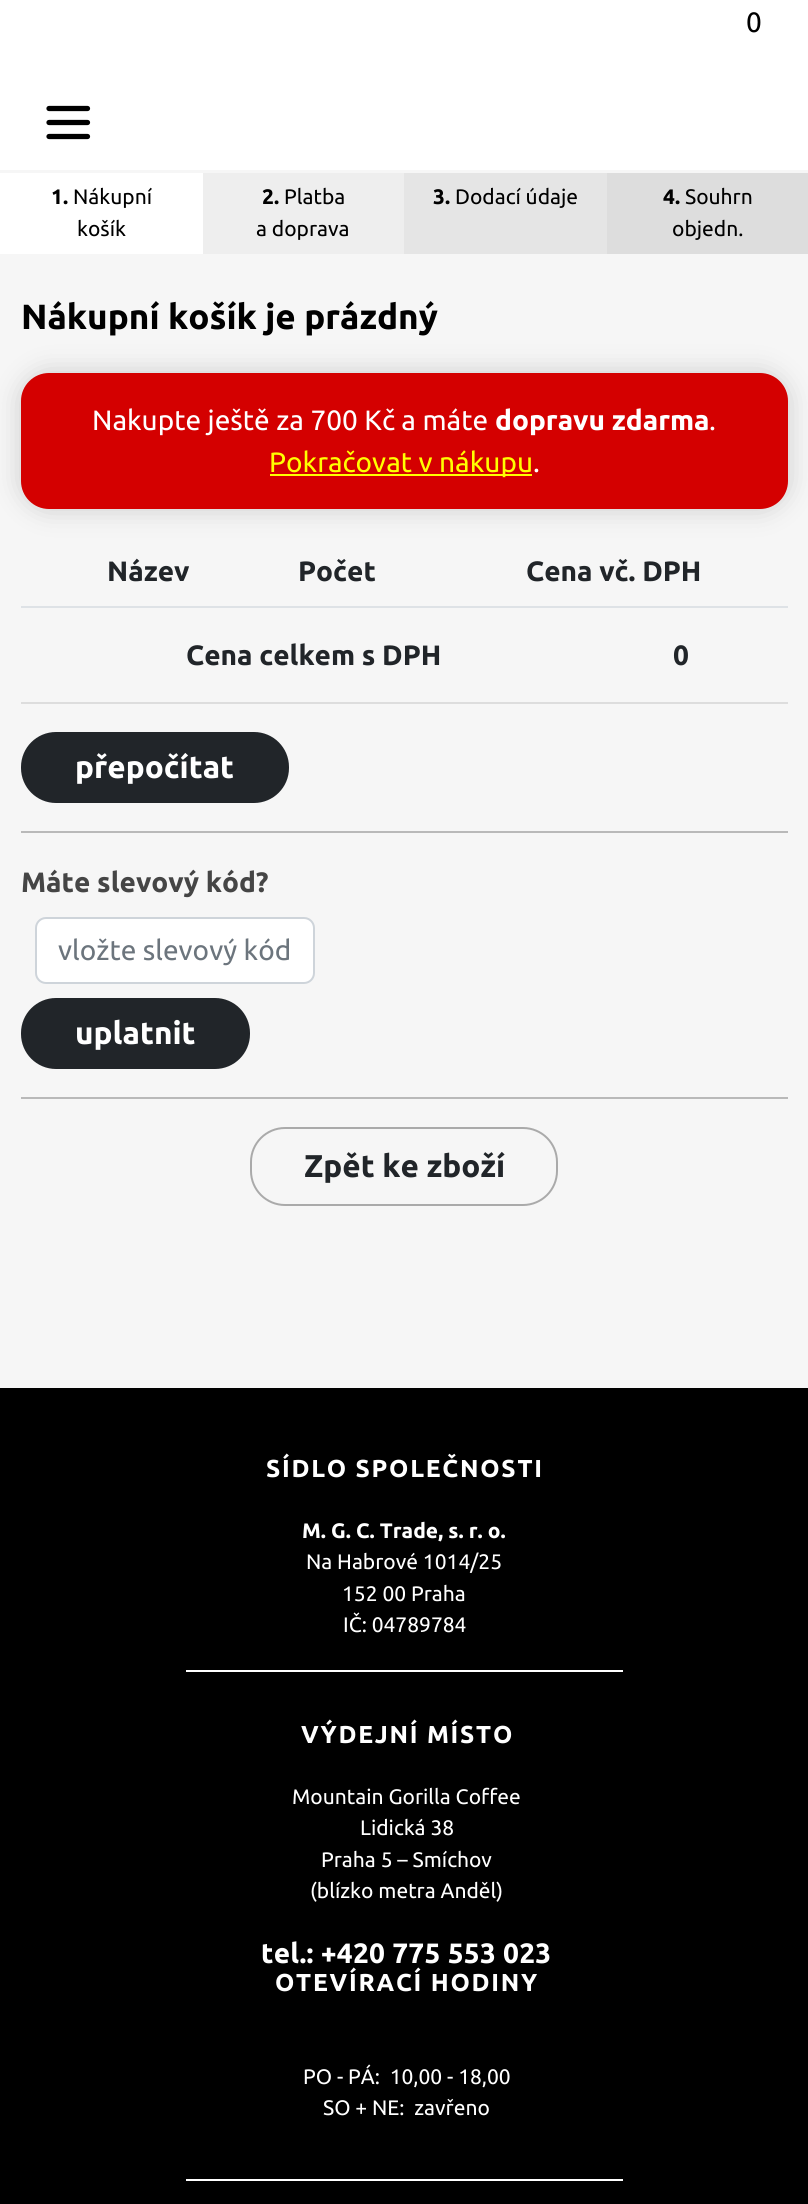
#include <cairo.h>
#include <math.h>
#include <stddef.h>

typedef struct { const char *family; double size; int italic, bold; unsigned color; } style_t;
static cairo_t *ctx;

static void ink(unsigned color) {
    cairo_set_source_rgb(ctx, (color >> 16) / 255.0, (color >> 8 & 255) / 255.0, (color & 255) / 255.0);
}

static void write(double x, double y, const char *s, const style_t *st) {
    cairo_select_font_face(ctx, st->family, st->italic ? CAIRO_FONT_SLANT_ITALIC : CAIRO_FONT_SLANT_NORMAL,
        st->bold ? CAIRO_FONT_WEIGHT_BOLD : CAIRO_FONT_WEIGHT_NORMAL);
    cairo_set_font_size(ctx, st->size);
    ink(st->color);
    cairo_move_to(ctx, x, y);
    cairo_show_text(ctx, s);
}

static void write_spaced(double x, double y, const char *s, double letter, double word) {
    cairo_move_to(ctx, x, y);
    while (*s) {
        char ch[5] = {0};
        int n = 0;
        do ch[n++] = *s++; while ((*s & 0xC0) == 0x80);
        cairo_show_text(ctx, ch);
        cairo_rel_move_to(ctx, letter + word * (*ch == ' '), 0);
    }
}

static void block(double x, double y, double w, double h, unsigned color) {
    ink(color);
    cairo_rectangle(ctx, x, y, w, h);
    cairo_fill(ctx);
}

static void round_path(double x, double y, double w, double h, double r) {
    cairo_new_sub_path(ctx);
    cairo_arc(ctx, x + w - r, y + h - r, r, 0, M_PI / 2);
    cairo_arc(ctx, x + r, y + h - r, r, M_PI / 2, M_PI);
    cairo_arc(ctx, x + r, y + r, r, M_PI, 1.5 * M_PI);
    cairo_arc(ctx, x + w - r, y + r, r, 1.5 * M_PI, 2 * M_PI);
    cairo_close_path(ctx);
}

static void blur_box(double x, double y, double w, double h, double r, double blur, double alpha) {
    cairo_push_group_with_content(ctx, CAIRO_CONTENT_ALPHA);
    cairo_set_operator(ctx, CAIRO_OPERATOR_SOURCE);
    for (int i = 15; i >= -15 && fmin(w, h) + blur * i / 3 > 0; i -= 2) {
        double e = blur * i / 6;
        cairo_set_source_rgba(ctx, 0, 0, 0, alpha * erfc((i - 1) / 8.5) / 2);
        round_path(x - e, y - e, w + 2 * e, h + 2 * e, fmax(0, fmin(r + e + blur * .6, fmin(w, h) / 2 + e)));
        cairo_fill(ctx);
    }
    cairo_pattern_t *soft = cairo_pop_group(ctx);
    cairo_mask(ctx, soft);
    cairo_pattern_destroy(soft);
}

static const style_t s1 = {"Ubuntu", 28, 0, 0, 0x000000};
static const style_t s2 = {"Ubuntu", 21, 0, 1, 0x000000};
static const style_t s3 = {"Ubuntu", 21, 0, 0, 0x000000};
static const style_t s4 = {"Ubuntu", 35, 0, 1, 0x000000};
static const style_t s5 = {"Ubuntu", 28, 0, 0, 0xffffff};
static const style_t s6 = {"Ubuntu", 28, 0, 1, 0xffffff};
static const style_t s7 = {"Ubuntu", 28, 0, 0, 0xffff00};
static const style_t s8 = {"Ubuntu", 28, 0, 1, 0x212529};
static const style_t s9 = {"Ubuntu", 31.5, 0, 1, 0xffffff};
static const style_t s10 = {"Ubuntu", 28, 0, 1, 0x454545};
static const style_t s11 = {"Ubuntu", 28, 0, 0, 0x6c757d};
static const style_t s12 = {"Ubuntu", 31.5, 0, 1, 0x212529};
static const style_t s13 = {"Ubuntu", 21, 0, 1, 0xffffff};
static const style_t s14 = {"Ubuntu", 21, 0, 0, 0xffffff};

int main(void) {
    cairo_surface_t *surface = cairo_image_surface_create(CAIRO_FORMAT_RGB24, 808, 2204);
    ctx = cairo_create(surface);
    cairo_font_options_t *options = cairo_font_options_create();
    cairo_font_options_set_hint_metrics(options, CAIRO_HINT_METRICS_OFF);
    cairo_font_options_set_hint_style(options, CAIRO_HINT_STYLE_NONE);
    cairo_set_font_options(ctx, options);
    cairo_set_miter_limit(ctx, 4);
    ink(0xf6f6f6);
    cairo_paint(ctx);
    block(0, 0, 808, 170, 0xffffff);
    write(746, 32, "0", &s1);
    cairo_new_path(ctx);
    cairo_move_to(ctx, 49, 108.5);
    cairo_line_to(ctx, 87.5, 108.5);
    cairo_move_to(ctx, 49, 122.5);
    cairo_line_to(ctx, 87.5, 122.5);
    cairo_move_to(ctx, 49, 136.5);
    cairo_line_to(ctx, 87.5, 136.5);
    cairo_set_line_width(ctx, 5.2);
    cairo_set_line_cap(ctx, CAIRO_LINE_CAP_ROUND);
    cairo_stroke(ctx);
    block(0, 173, 203, 81, 0xffffff);
    write(51, 204, "1.", &s2);
    write(73, 204, "Nákupní", &s3);
    write(77, 236, "košík", &s3);
    block(203, 173, 201, 81, 0xeeeeee);
    write(262, 204, "2.", &s2);
    write(284, 204, "Platba", &s3);
    write(256, 236, "a doprava", &s3);
    block(404, 173, 203, 81, 0xe5e5e5);
    write(433, 204, "3.", &s2);
    write(455, 204, "Dodací údaje", &s3);
    block(607, 173, 201, 81, 0xdddddd);
    write(663, 204, "4.", &s2);
    write(685, 204, "Souhrn", &s3);
    write(672, 236, "objedn.", &s3);
    ink(0xcccccc);
    blur_box(21, 373, 767, 136, 28, 13, 1);
    write(21, 329, "Nákupní košík je prázdný", &s4);
    ink(0xd40000);
    round_path(21, 373, 767, 136, 28);
    cairo_fill(ctx);
    write(92, 430, "Nakupte ještě za 700 Kč a máte", &s5);
    write(495, 430, "dopravu zdarma", &s6);
    write(709, 430, ".", &s5);
    block(270, 474, 262, 2, 0xffff00);
    write(269, 472, "Pokračovat v nákupu", &s7);
    write(533, 472, ".", &s5);
    write(107, 581, "Název", &s8);
    write(298, 581, "Počet", &s8);
    write(526, 581, "Cena vč. DPH", &s8);
    block(21, 606, 767, 2, 0xdee2e6);
    write(186, 665, "Cena celkem s DPH", &s8);
    write(673, 665, "0", &s8);
    block(21, 702, 767, 2, 0xdddddd);
    ink(0x212529);
    round_path(22, 733, 266, 69, 34);
    cairo_fill_preserve(ctx);
    cairo_set_line_width(ctx, 2);
    cairo_set_line_cap(ctx, CAIRO_LINE_CAP_BUTT);
    cairo_stroke(ctx);
    write(75, 778, "přepočítat", &s9);
    block(21, 831, 767, 2, 0xb9b9b9);
    write(21, 892, "Máte slevový kód?", &s10);
    ink(0xffffff);
    round_path(36, 918, 278, 65, 10);
    cairo_fill_preserve(ctx);
    ink(0xced4da);
    cairo_stroke(ctx);
    write(58, 960, "vložte slevový kód", &s11);
    ink(0x212529);
    round_path(22, 999, 227, 69, 34);
    cairo_fill_preserve(ctx);
    cairo_stroke(ctx);
    write(75, 1044, "uplatnit", &s9);
    block(21, 1097, 767, 2, 0xb9b9b9);
    round_path(251, 1128, 306, 77, 34);
    ink(0xaaaaaa);
    cairo_stroke(ctx);
    write(304, 1177, "Zpět ke zboží", &s12);
    block(0, 1388, 808, 816, 0x000000);
    cairo_set_font_size(ctx, 24.5);
    ink(0xffffff);
    write_spaced(266, 1477, "SÍDLO SPOLEČNOSTI", 1.75, 0);
    write(302, 1538, "M. G. C. Trade, s. r. o.", &s13);
    write(306, 1569, "Na Habrové 1014/25", &s14);
    write(342, 1601, "152 00 Praha", &s14);
    write(343, 1632, "IČ: 04789784", &s14);
    block(186, 1670, 437, 2, 0xffffff);
    cairo_select_font_face(ctx, "Ubuntu", CAIRO_FONT_SLANT_NORMAL, CAIRO_FONT_WEIGHT_BOLD);
    cairo_set_font_size(ctx, 24.5);
    write_spaced(301, 1743, "VÝDEJNÍ MÍSTO", 1.75, 0);
    write(292, 1804, "Mountain Gorilla Coffee", &s14);
    write(360, 1835, "Lidická 38", &s14);
    write(321, 1867, "Praha 5 – Smíchov", &s14);
    write(310, 1898, "(blízko metra Anděl)", &s14);
    cairo_select_font_face(ctx, "Ubuntu", CAIRO_FONT_SLANT_NORMAL, CAIRO_FONT_WEIGHT_BOLD);
    cairo_set_font_size(ctx, 28);
    write_spaced(261, 1963, "tel.: +420 775 553 023", 0.25, 0);
    cairo_set_font_size(ctx, 24.5);
    write_spaced(275, 1991, "OTEVÍRACÍ HODINY", 1.75, 0);
    write(303, 2084, "PO - PÁ:  10,00 - 18,00", &s14);
    write(323, 2115, "SO + NE:  zavřeno", &s14);
    block(186, 2179, 437, 2, 0xffffff);
    cairo_surface_write_to_png(surface, "screenshot.png");
    cairo_font_options_destroy(options);
    cairo_destroy(ctx);
    cairo_surface_destroy(surface);
    return 0;
}
